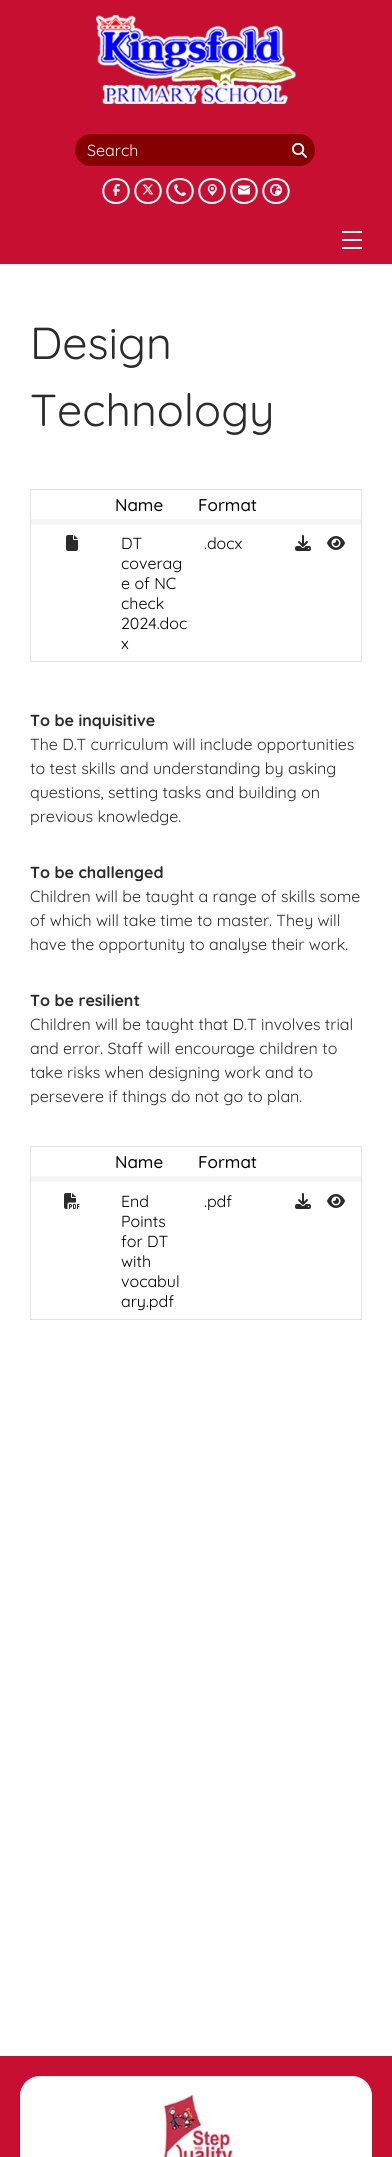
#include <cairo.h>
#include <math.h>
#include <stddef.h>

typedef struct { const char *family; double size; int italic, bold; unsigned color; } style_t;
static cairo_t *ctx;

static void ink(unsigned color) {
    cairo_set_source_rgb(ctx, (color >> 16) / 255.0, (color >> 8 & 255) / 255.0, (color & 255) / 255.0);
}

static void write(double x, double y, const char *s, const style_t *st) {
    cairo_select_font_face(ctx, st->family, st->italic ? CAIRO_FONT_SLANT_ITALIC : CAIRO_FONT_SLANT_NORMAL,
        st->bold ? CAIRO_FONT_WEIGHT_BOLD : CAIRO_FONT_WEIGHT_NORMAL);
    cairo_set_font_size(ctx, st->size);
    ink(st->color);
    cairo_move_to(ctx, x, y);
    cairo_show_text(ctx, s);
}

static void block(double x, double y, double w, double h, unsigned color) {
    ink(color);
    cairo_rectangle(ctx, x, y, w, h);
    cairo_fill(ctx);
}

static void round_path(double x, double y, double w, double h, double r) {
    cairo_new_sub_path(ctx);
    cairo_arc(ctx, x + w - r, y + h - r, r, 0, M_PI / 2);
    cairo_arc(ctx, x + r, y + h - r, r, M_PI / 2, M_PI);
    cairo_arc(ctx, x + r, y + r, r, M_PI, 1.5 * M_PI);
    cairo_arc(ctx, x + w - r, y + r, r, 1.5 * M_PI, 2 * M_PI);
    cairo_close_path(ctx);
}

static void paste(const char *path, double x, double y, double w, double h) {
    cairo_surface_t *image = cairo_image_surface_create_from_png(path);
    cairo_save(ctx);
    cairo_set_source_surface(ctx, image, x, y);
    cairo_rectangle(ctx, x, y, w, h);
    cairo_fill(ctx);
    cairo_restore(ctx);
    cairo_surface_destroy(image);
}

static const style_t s1 = {"Quicksand", 16, 0, 0, 0xffffff};
static const style_t s2 = {"Quicksand", 44.75, 0, 0, 0x2b2b2b};
static const style_t s3 = {"Quicksand Medium", 17, 0, 0, 0x000000};
static const style_t s4 = {"Quicksand", 16, 0, 0, 0x000000};
static const style_t s5 = {"Quicksand", 16, 0, 1, 0x2b2b2b};
static const style_t s6 = {"Quicksand", 16, 0, 0, 0x2b2b2b};

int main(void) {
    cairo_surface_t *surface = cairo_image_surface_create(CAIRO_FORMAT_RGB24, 392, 2157);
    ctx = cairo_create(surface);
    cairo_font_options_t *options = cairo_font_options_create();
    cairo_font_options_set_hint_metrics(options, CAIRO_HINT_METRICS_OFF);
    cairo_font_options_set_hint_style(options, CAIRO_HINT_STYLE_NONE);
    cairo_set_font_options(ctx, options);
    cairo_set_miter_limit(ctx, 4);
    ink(0xffffff);
    cairo_paint(ctx);
    block(0, 0, 392, 264, 0xc70f31);
    paste("pic1.png", 96, 15, 200, 89);
    ink(0x850000);
    cairo_new_path(ctx);
    cairo_move_to(ctx, 91, 134);
    cairo_line_to(ctx, 288, 134);
    cairo_line_to(ctx, 288, 166);
    cairo_line_to(ctx, 91, 166);
    cairo_curve_to(ctx, 82, 166, 75, 159, 75, 150);
    cairo_curve_to(ctx, 75, 141, 82, 134, 91, 134);
    cairo_close_path(ctx);
    cairo_fill(ctx);
    write(87, 156, "Search", &s1);
    ink(0x850000);
    cairo_new_path(ctx);
    cairo_move_to(ctx, 287, 134);
    cairo_line_to(ctx, 299, 134);
    cairo_curve_to(ctx, 308, 134, 315, 141, 315, 150);
    cairo_curve_to(ctx, 315, 159, 308, 166, 299, 166);
    cairo_line_to(ctx, 287, 166);
    cairo_close_path(ctx);
    cairo_fill(ctx);
    paste("pic2.png", 292, 142, 15, 16);
    cairo_new_path(ctx);
    cairo_move_to(ctx, 116, 179);
    cairo_curve_to(ctx, 133, 179, 133, 203, 116, 203);
    cairo_curve_to(ctx, 99, 203, 99, 179, 116, 179);
    cairo_close_path(ctx);
    ink(0xffffff);
    cairo_stroke(ctx);
    paste("pic3.png", 113, 184, 7, 12);
    cairo_new_path(ctx);
    cairo_move_to(ctx, 148, 179);
    cairo_curve_to(ctx, 165, 179, 165, 203, 148, 203);
    cairo_curve_to(ctx, 131, 203, 131, 179, 148, 179);
    cairo_close_path(ctx);
    cairo_stroke(ctx);
    paste("pic4.png", 142, 184, 12, 11);
    cairo_new_path(ctx);
    cairo_move_to(ctx, 180, 179);
    cairo_curve_to(ctx, 197, 179, 197, 203, 180, 203);
    cairo_curve_to(ctx, 163, 203, 163, 179, 180, 179);
    cairo_close_path(ctx);
    cairo_stroke(ctx);
    paste("pic5.png", 174, 184, 12, 12);
    cairo_new_path(ctx);
    cairo_move_to(ctx, 212, 179);
    cairo_curve_to(ctx, 229, 179, 229, 203, 212, 203);
    cairo_curve_to(ctx, 195, 203, 195, 179, 212, 179);
    cairo_close_path(ctx);
    cairo_stroke(ctx);
    paste("pic6.png", 207, 184, 10, 12);
    cairo_new_path(ctx);
    cairo_move_to(ctx, 244, 179);
    cairo_curve_to(ctx, 261, 179, 261, 203, 244, 203);
    cairo_curve_to(ctx, 227, 203, 227, 179, 244, 179);
    cairo_close_path(ctx);
    cairo_stroke(ctx);
    paste("pic7.png", 238, 185, 12, 10);
    cairo_new_path(ctx);
    cairo_move_to(ctx, 276, 179);
    cairo_curve_to(ctx, 293, 179, 293, 203, 276, 203);
    cairo_curve_to(ctx, 259, 203, 259, 179, 276, 179);
    cairo_close_path(ctx);
    cairo_stroke(ctx);
    paste("pic8.png", 270, 184, 12, 12);
    block(342, 231, 20, 2, 0xffffff);
    block(342, 239, 20, 2, 0xffffff);
    block(342, 247, 20, 2, 0xffffff);
    write(30, 359, "Design", &s2);
    write(30, 426, "Technology", &s2);
    block(31, 519, 330, 6, 0xf5f5f5);
    block(30, 489, 332, 1, 0xe1e1e1);
    block(361, 489, 1, 173, 0xe1e1e1);
    block(30, 661, 332, 1, 0xe1e1e1);
    block(30, 489, 1, 173, 0xe1e1e1);
    write(115, 511, "Name", &s3);
    write(198, 511, "Format", &s3);
    block(30, 519, 1, 1, 0xf5f5f5);
    block(361, 519, 1, 1, 0xf5f5f5);
    paste("pic9.png", 66, 535, 12, 16);
    write(121, 549, "DT", &s4);
    write(121, 569, "coverag", &s4);
    write(121, 589, "e of NC", &s4);
    write(121, 609, "check", &s4);
    write(121, 629, "2024.doc", &s4);
    write(121, 649, "x", &s4);
    write(204, 549, ".docx", &s4);
    paste("pic10.png", 295, 535, 16, 16);
    paste("pic11.png", 327, 536, 18, 14);
    write(30, 726, "To be inquisitive", &s5);
    write(30, 750, "The D.T curriculum will include opportunities", &s6);
    write(30, 774, "to test skills and understanding by asking", &s6);
    write(30, 798, "questions, setting tasks and building on", &s6);
    write(30, 822, "previous knowledge.", &s6);
    write(30, 878, "To be challenged", &s5);
    write(30, 902, "Children will be taught a range of skills some", &s6);
    write(30, 926, "of which will take time to master. They will", &s6);
    write(30, 950, "have the opportunity to analyse their work.", &s6);
    write(30, 1006, "To be resilient", &s5);
    write(30, 1030, "Children will be taught that D.T involves trial", &s6);
    write(30, 1054, "and error. Staff will encourage children to", &s6);
    write(30, 1078, "take risks when designing work and to", &s6);
    write(30, 1102, "persevere if things do not go to plan.", &s6);
    block(31, 1176, 330, 6, 0xf5f5f5);
    block(30, 1146, 332, 1, 0xe1e1e1);
    block(361, 1146, 1, 174, 0xe1e1e1);
    block(30, 1319, 332, 1, 0xe1e1e1);
    block(30, 1146, 1, 174, 0xe1e1e1);
    write(115, 1168, "Name", &s3);
    write(198, 1168, "Format", &s3);
    block(30, 1177, 1, 1, 0xf5f5f5);
    block(361, 1177, 1, 1, 0xf5f5f5);
    paste("pic12.png", 64, 1193, 16, 16);
    write(121, 1207, "End", &s4);
    write(121, 1227, "Points", &s4);
    write(121, 1247, "for DT", &s4);
    write(121, 1267, "with", &s4);
    write(121, 1287, "vocabul", &s4);
    write(121, 1307, "ary.pdf", &s4);
    write(204, 1207, ".pdf", &s4);
    paste("pic10.png", 295, 1193, 16, 16);
    paste("pic11.png", 327, 1194, 18, 14);
    block(0, 2056, 392, 101, 0xc70f31);
    ink(0xffffff);
    round_path(20, 2076, 352, 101, 20);
    cairo_fill(ctx);
    paste("pic13.png", 162, 2094, 73, 63);
    cairo_surface_write_to_png(surface, "screenshot.png");
    cairo_font_options_destroy(options);
    cairo_destroy(ctx);
    cairo_surface_destroy(surface);
    return 0;
}
